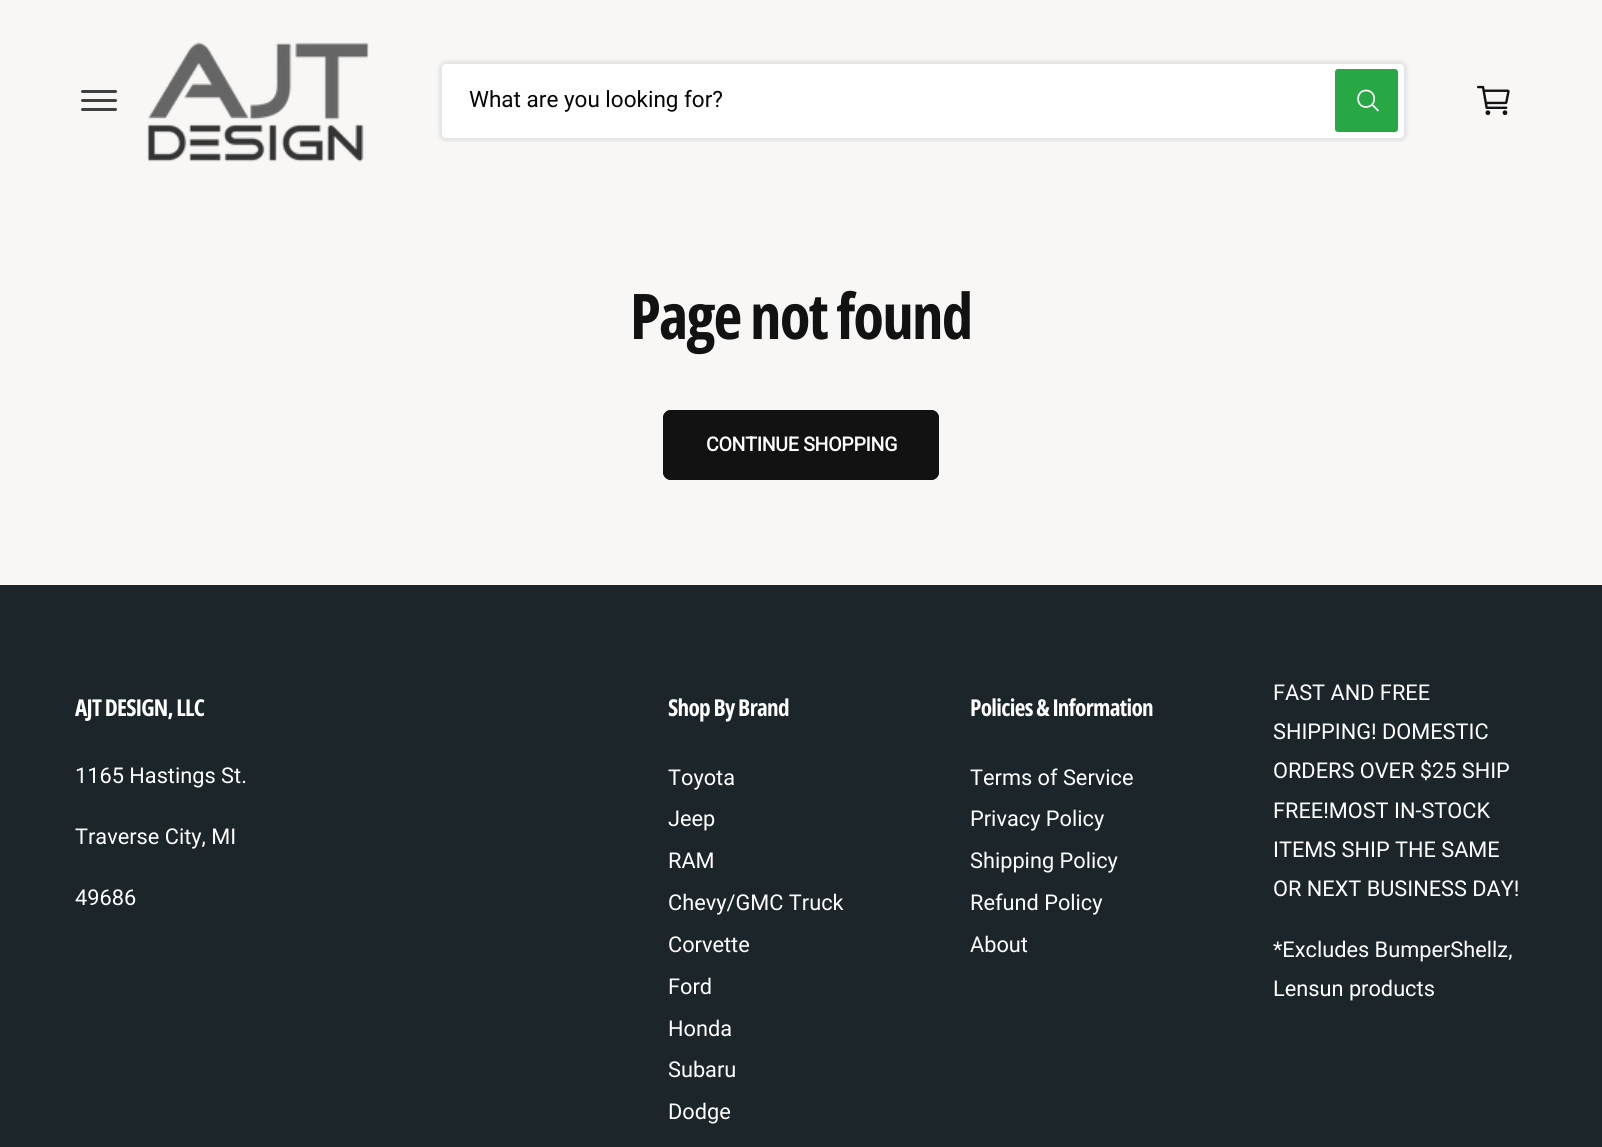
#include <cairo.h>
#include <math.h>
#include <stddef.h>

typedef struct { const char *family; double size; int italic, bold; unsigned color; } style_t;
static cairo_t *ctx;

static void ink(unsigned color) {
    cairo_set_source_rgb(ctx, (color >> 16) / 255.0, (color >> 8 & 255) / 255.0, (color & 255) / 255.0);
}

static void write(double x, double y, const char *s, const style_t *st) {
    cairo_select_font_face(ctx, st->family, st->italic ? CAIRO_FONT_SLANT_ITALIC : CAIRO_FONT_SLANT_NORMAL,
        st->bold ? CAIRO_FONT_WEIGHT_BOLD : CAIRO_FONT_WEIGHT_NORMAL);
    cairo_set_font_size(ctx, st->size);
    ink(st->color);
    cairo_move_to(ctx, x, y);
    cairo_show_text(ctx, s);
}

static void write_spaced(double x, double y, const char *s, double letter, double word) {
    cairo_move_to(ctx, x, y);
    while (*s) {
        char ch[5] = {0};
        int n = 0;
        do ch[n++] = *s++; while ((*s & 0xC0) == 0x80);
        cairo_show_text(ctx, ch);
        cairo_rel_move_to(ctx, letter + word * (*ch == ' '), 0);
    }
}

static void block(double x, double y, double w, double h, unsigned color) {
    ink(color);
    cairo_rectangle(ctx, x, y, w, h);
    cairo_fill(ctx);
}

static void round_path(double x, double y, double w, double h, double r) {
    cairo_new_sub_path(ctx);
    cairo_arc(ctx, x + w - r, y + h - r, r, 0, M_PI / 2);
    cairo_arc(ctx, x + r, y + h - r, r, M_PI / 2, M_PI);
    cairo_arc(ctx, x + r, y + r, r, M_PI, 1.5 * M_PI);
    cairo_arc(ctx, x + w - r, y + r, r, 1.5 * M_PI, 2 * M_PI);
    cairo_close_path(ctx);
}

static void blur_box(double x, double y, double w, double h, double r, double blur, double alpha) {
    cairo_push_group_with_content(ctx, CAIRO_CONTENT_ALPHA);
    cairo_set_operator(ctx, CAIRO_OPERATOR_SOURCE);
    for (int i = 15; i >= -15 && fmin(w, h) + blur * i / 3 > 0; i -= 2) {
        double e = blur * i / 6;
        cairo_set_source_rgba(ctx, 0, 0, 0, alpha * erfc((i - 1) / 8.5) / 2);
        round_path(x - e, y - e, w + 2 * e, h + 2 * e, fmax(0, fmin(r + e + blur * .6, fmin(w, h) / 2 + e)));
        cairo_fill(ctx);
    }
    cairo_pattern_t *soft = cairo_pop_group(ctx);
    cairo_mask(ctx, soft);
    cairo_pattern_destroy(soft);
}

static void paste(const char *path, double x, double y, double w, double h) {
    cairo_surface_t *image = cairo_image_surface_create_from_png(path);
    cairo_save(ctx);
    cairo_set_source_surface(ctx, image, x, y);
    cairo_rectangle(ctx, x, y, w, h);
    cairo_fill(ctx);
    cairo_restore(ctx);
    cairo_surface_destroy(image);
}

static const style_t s1 = {"Roboto", 22.5, 0, 0, 0x050505};
static const style_t s2 = {"Roboto", 21.75, 0, 0, 0xffffff};

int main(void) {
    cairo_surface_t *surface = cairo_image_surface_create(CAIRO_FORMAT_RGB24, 1602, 1147);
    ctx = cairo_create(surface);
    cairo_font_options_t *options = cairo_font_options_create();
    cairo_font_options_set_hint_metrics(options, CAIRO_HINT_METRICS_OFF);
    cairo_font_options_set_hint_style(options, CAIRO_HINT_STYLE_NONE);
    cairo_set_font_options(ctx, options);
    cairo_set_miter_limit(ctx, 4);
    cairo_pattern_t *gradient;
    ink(0xf9f7f6);
    cairo_paint(ctx);
    cairo_new_path(ctx);
    cairo_move_to(ctx, 82.5, 91.5);
    cairo_line_to(ctx, 115.5, 91.5);
    cairo_move_to(ctx, 82.5, 100.5);
    cairo_line_to(ctx, 115.5, 100.5);
    cairo_move_to(ctx, 82.5, 109.5);
    cairo_line_to(ctx, 115.5, 109.5);
    ink(0x404040);
    cairo_set_line_width(ctx, 3);
    cairo_set_line_cap(ctx, CAIRO_LINE_CAP_ROUND);
    cairo_stroke(ctx);
    paste("pic1.png", 147, 42, 222, 120);
    ink(0xffffff);
    round_path(440, 62, 966, 78, 6);
    cairo_fill(ctx);
    gradient = cairo_pattern_create_linear(1401, 104, 1332, 97);
    cairo_pattern_add_color_stop_rgba(gradient, 0, 0.145, 0.69, 0.361, 1);
    cairo_pattern_add_color_stop_rgba(gradient, 0.01, 0.157, 0.655, 0.271, 1);
    cairo_pattern_add_color_stop_rgba(gradient, 0.54, 0.157, 0.655, 0.271, 1);
    cairo_set_source(ctx, gradient);
    cairo_pattern_destroy(gradient);
    round_path(1335, 69, 63, 63, 3);
    cairo_fill(ctx);
    cairo_new_path(ctx);
    cairo_move_to(ctx, 1366, 90.5);
    cairo_curve_to(ctx, 1355.5, 90.5, 1355.5, 107, 1366, 107);
    cairo_curve_to(ctx, 1377, 107, 1377, 90.5, 1366, 90.5);
    cairo_close_path(ctx);
    ink(0xffffff);
    cairo_set_line_width(ctx, 1.7);
    cairo_set_line_cap(ctx, CAIRO_LINE_CAP_BUTT);
    cairo_stroke(ctx);
    cairo_new_path(ctx);
    cairo_move_to(ctx, 1372.5, 105);
    cairo_line_to(ctx, 1378, 110.5);
    cairo_set_line_cap(ctx, CAIRO_LINE_CAP_ROUND);
    cairo_stroke(ctx);
    cairo_save(ctx);
    cairo_set_fill_rule(ctx, CAIRO_FILL_RULE_EVEN_ODD);
    cairo_new_path(ctx);
    cairo_move_to(ctx, 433, 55);
    cairo_line_to(ctx, 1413, 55);
    cairo_line_to(ctx, 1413, 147);
    cairo_line_to(ctx, 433, 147);
    cairo_close_path(ctx);
    cairo_move_to(ctx, 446, 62);
    cairo_line_to(ctx, 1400, 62);
    cairo_curve_to(ctx, 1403.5, 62, 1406, 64.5, 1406, 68);
    cairo_line_to(ctx, 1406, 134);
    cairo_curve_to(ctx, 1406, 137.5, 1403.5, 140, 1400, 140);
    cairo_line_to(ctx, 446, 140);
    cairo_curve_to(ctx, 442.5, 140, 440, 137.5, 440, 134);
    cairo_line_to(ctx, 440, 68);
    cairo_curve_to(ctx, 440, 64.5, 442.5, 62, 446, 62);
    cairo_close_path(ctx);
    cairo_clip(ctx);
    ink(0x000000);
    blur_box(440, 62, 966, 78, 6, 2, 0.15);
    cairo_restore(ctx);
    round_path(441, 63, 964, 76, 5);
    cairo_set_source_rgba(ctx, 0.02, 0.02, 0.02, 0.1);
    cairo_set_line_width(ctx, 2);
    cairo_set_line_cap(ctx, CAIRO_LINE_CAP_BUTT);
    cairo_stroke(ctx);
    write(469, 107, "What are you looking for?", &s1);
    paste("pic2.png", 1477, 85, 33, 31);
    cairo_select_font_face(ctx, "Open Sans Condensed", CAIRO_FONT_SLANT_NORMAL, CAIRO_FONT_WEIGHT_BOLD);
    cairo_set_font_size(ctx, 63);
    ink(0x121212);
    write_spaced(630, 339, "Page not found", -1.8, 0);
    round_path(663, 410, 276, 70, 8);
    cairo_fill(ctx);
    round_path(664, 411, 274, 68, 7);
    cairo_stroke(ctx);
    cairo_select_font_face(ctx, "Roboto", CAIRO_FONT_SLANT_NORMAL, CAIRO_FONT_WEIGHT_BOLD);
    cairo_set_font_size(ctx, 19.5);
    ink(0xffffff);
    write_spaced(706, 451, "CONTINUE SHOPPING", -0.25, 0);
    block(0, 585, 1602, 562, 0x1c2529);
    cairo_select_font_face(ctx, "Open Sans Condensed", CAIRO_FONT_SLANT_NORMAL, CAIRO_FONT_WEIGHT_BOLD);
    cairo_set_font_size(ctx, 23.25);
    ink(0xffffff);
    write_spaced(75, 716, "AJT DESIGN, LLC", -0.7, 0);
    write(75, 783, "1165 Hastings St.", &s2);
    write(75, 844, "Traverse City, MI", &s2);
    write(75, 905, "49686", &s2);
    cairo_select_font_face(ctx, "Open Sans Condensed", CAIRO_FONT_SLANT_NORMAL, CAIRO_FONT_WEIGHT_BOLD);
    cairo_set_font_size(ctx, 23.25);
    write_spaced(668, 716, "Shop By Brand", -0.7, 0);
    write(668, 785, "Toyota", &s2);
    write(668, 826, "Jeep", &s2);
    write(668, 868, "RAM", &s2);
    write(668, 910, "Chevy/GMC Truck", &s2);
    write(668, 952, "Corvette", &s2);
    write(668, 994, "Ford", &s2);
    write(668, 1036, "Honda", &s2);
    write(668, 1077, "Subaru", &s2);
    write(668, 1119, "Dodge", &s2);
    cairo_select_font_face(ctx, "Open Sans Condensed", CAIRO_FONT_SLANT_NORMAL, CAIRO_FONT_WEIGHT_BOLD);
    cairo_set_font_size(ctx, 23.25);
    write_spaced(970, 716, "Policies & Information", -0.7, 0);
    write(970, 785, "Terms of Service", &s2);
    write(970, 826, "Privacy Policy", &s2);
    write(970, 868, "Shipping Policy", &s2);
    write(970, 910, "Refund Policy", &s2);
    write(970, 952, "About", &s2);
    write(1273, 700, "FAST AND FREE", &s2);
    write(1273, 739, "SHIPPING! DOMESTIC", &s2);
    write(1273, 778, "ORDERS OVER $25 SHIP", &s2);
    write(1273, 818, "FREE!MOST IN-STOCK", &s2);
    write(1273, 857, "ITEMS SHIP THE SAME", &s2);
    write(1273, 896, "OR NEXT BUSINESS DAY!", &s2);
    write(1273, 957, "*Excludes BumperShellz,", &s2);
    write(1273, 996, "Lensun products", &s2);
    cairo_surface_write_to_png(surface, "screenshot.png");
    cairo_font_options_destroy(options);
    cairo_destroy(ctx);
    cairo_surface_destroy(surface);
    return 0;
}
